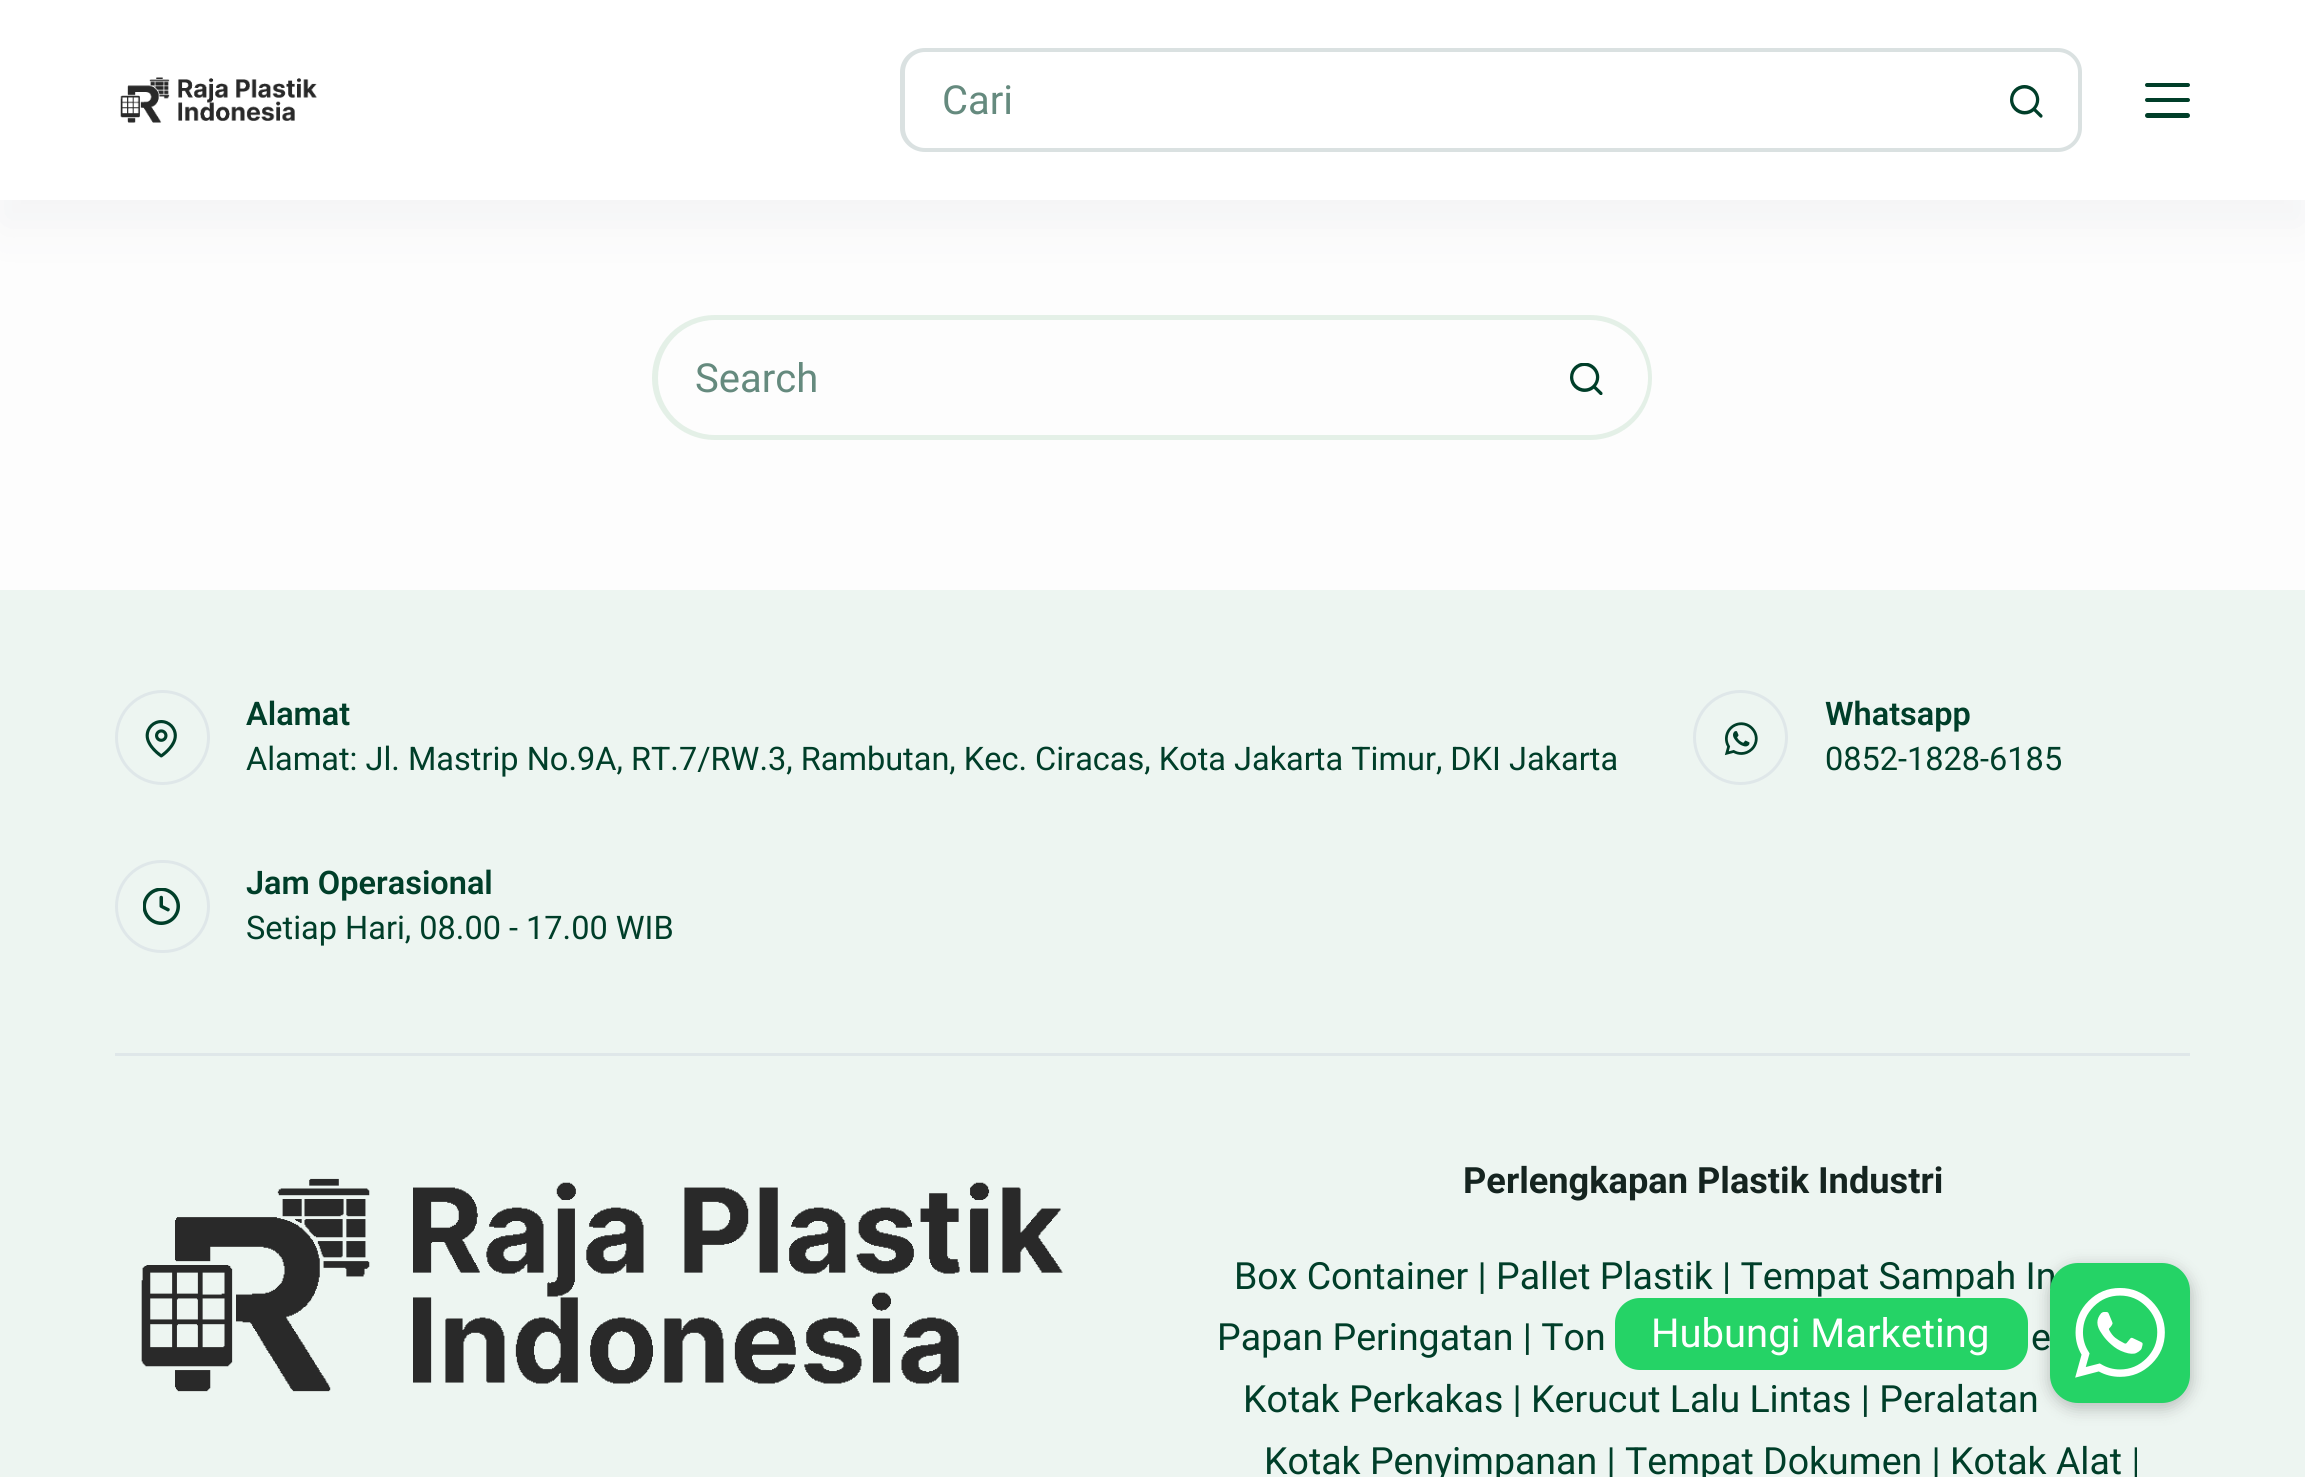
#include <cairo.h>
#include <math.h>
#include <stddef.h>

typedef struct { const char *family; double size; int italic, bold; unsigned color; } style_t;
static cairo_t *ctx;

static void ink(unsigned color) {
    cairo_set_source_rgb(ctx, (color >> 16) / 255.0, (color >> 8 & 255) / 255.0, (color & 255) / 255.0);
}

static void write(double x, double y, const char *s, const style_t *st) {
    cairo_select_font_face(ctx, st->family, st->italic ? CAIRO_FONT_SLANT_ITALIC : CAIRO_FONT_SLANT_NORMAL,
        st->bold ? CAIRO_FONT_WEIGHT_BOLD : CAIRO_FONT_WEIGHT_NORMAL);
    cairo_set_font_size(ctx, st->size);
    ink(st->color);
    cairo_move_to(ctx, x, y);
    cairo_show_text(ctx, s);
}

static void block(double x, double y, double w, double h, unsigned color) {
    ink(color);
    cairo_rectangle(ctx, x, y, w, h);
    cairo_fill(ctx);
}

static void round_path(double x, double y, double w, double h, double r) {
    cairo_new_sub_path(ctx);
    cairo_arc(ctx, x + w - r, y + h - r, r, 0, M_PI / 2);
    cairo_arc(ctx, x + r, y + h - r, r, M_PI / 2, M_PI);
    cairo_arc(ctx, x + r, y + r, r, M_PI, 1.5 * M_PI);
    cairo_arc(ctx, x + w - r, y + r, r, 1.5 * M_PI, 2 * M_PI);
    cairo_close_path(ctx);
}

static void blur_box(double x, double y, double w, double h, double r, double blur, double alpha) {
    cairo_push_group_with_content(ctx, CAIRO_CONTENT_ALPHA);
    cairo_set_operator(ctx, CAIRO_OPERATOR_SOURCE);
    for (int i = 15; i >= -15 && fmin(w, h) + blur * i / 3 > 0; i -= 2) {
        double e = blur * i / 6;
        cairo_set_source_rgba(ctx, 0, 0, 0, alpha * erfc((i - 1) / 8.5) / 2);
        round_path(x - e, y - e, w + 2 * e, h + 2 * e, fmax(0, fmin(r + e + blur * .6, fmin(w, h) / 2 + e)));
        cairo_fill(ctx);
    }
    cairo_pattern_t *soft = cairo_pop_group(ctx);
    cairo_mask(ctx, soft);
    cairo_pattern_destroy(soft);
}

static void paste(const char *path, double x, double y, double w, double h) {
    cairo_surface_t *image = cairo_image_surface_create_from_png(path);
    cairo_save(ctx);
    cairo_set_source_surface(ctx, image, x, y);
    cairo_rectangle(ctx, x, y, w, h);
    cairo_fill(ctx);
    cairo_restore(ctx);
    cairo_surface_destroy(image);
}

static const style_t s1 = {"Roboto", 40, 0, 0, 0x658a7e};
static const style_t s2 = {"Roboto SemiBold", 32.5, 0, 0, 0x003e29};
static const style_t s3 = {"Roboto", 32.5, 0, 0, 0x003e29};
static const style_t s4 = {"Roboto", 36.2, 0, 1, 0x152420};
static const style_t s5 = {"Roboto", 37.5, 0, 0, 0x003e29};
static const style_t s6 = {"Roboto", 40, 0, 0, 0xffffff};

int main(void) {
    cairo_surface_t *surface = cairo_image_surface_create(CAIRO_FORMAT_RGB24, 2305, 1477);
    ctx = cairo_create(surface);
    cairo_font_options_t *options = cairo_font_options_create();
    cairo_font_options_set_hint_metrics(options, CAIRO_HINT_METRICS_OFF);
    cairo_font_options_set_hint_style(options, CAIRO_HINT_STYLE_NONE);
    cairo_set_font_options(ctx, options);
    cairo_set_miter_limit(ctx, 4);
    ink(0xfdfdfd);
    cairo_paint(ctx);
    ink(0x2c3e50);
    blur_box(0, 25, 2305, 200, 0, 25, 0.05);
    block(0, 0, 2305, 200, 0xffffff);
    paste("pic1.png", 120, 77, 197, 46);
    ink(0xdae1e1);
    cairo_set_fill_rule(ctx, CAIRO_FILL_RULE_EVEN_ODD);
    cairo_new_path(ctx);
    cairo_move_to(ctx, 925, 48);
    cairo_line_to(ctx, 1978, 48);
    cairo_line_to(ctx, 1978, 152);
    cairo_line_to(ctx, 925, 152);
    cairo_curve_to(ctx, 911, 152, 900, 141, 900, 128);
    cairo_line_to(ctx, 900, 72);
    cairo_curve_to(ctx, 900, 59, 911, 48, 925, 48);
    cairo_close_path(ctx);
    cairo_move_to(ctx, 925, 52);
    cairo_line_to(ctx, 1978, 52);
    cairo_line_to(ctx, 1978, 148);
    cairo_line_to(ctx, 925, 148);
    cairo_curve_to(ctx, 914, 148, 905, 139, 905, 128);
    cairo_line_to(ctx, 905, 72);
    cairo_curve_to(ctx, 905, 61, 914, 52, 925, 52);
    cairo_close_path(ctx);
    cairo_fill(ctx);
    write(942, 114, "Cari", &s1);
    ink(0xdae1e1);
    cairo_new_path(ctx);
    cairo_move_to(ctx, 1978, 48);
    cairo_line_to(ctx, 2058, 48);
    cairo_curve_to(ctx, 2071, 48, 2082, 59, 2082, 72);
    cairo_line_to(ctx, 2082, 128);
    cairo_curve_to(ctx, 2082, 141, 2071, 152, 2058, 152);
    cairo_line_to(ctx, 1978, 152);
    cairo_close_path(ctx);
    cairo_move_to(ctx, 1978, 52);
    cairo_line_to(ctx, 2058, 52);
    cairo_curve_to(ctx, 2069, 52, 2078, 61, 2078, 72);
    cairo_line_to(ctx, 2078, 128);
    cairo_curve_to(ctx, 2078, 139, 2069, 148, 2058, 148);
    cairo_line_to(ctx, 1978, 148);
    cairo_close_path(ctx);
    cairo_fill(ctx);
    paste("pic2.png", 2010, 85, 33, 33);
    ink(0x003e29);
    round_path(2145, 83, 45, 4, 2);
    cairo_fill(ctx);
    round_path(2145, 98, 45, 4, 2);
    cairo_fill(ctx);
    round_path(2145, 113, 45, 5, 2.5);
    cairo_fill(ctx);
    ink(0xe4f0e7);
    cairo_new_path(ctx);
    cairo_move_to(ctx, 715, 315);
    cairo_line_to(ctx, 1528, 315);
    cairo_line_to(ctx, 1528, 440);
    cairo_line_to(ctx, 715, 440);
    cairo_curve_to(ctx, 680, 440, 652, 412, 652, 378);
    cairo_curve_to(ctx, 652, 343, 680, 315, 715, 315);
    cairo_close_path(ctx);
    cairo_move_to(ctx, 715, 320);
    cairo_line_to(ctx, 1528, 320);
    cairo_line_to(ctx, 1528, 435);
    cairo_line_to(ctx, 715, 435);
    cairo_curve_to(ctx, 683, 435, 658, 409, 658, 378);
    cairo_curve_to(ctx, 658, 346, 683, 320, 715, 320);
    cairo_close_path(ctx);
    cairo_fill(ctx);
    write(695, 392, "Search", &s1);
    ink(0xe4f0e7);
    cairo_new_path(ctx);
    cairo_move_to(ctx, 1528, 315);
    cairo_line_to(ctx, 1590, 315);
    cairo_curve_to(ctx, 1625, 315, 1652, 343, 1652, 378);
    cairo_curve_to(ctx, 1652, 412, 1625, 440, 1590, 440);
    cairo_line_to(ctx, 1528, 440);
    cairo_close_path(ctx);
    cairo_move_to(ctx, 1528, 320);
    cairo_line_to(ctx, 1590, 320);
    cairo_curve_to(ctx, 1622, 320, 1648, 346, 1648, 378);
    cairo_curve_to(ctx, 1648, 409, 1622, 435, 1590, 435);
    cairo_line_to(ctx, 1528, 435);
    cairo_close_path(ctx);
    cairo_fill(ctx);
    paste("pic3.png", 1570, 363, 33, 32);
    block(0, 590, 2305, 887, 0xedf5f1);
    block(115, 1053, 2075, 3, 0xdfe7e9);
    cairo_arc(ctx, 162.5, 737.5, 46, 0, 2 * M_PI);
    cairo_set_line_width(ctx, 3);
    cairo_stroke(ctx);
    paste("pic4.png", 145, 720, 32, 38);
    write(246, 725, "Alamat", &s2);
    write(246, 770, "Alamat: Jl. Mastrip No.9A, RT.7/RW.3, Rambutan, Kec. Ciracas, Kota Jakarta Timur, DKI Jakarta", &s3);
    cairo_new_path(ctx);
    cairo_arc(ctx, 1740.5, 737.5, 46, 0, 2 * M_PI);
    ink(0xdfe7e9);
    cairo_stroke(ctx);
    paste("pic5.png", 1724, 722, 34, 34);
    write(1825, 725, "Whatsapp", &s2);
    write(1825, 770, "0852-1828-6185", &s3);
    round_path(116.5, 861.5, 92, 90, 45);
    ink(0xdfe7e9);
    cairo_stroke(ctx);
    paste("pic6.png", 143, 888, 37, 37);
    write(246, 894, "Jam Operasional", &s2);
    write(246, 939, "Setiap Hari, 08.00 - 17.00 WIB", &s3);
    paste("pic7.png", 141, 1178, 922, 214);
    write(1463, 1193, "Perlengkapan Plastik Industri", &s4);
    write(1234, 1289, "Box Container | Pallet Plastik | Tempat Sampah In", &s5);
    write(1217, 1350, "Papan Peringatan | Ton", &s5);
    write(2031, 1350, "e", &s5);
    write(1243, 1412, "Kotak Perkakas | Kerucut Lalu Lintas | Peralatan", &s5);
    write(1264, 1474, "Kotak Penyimpanan | Tempat Dokumen | Kotak Alat |", &s5);
    ink(0x000000);
    blur_box(2048, 1265, 145, 145, 30, 7.5, 0.2);
    ink(0x25d366);
    round_path(2050, 1263, 140, 140, 28);
    cairo_fill(ctx);
    round_path(1615, 1298, 413, 72, 25);
    cairo_fill(ctx);
    write(1651, 1347, "Hubungi Marketing", &s6);
    paste("pic8.png", 2075, 1288, 90, 90);
    cairo_surface_write_to_png(surface, "screenshot.png");
    cairo_font_options_destroy(options);
    cairo_destroy(ctx);
    cairo_surface_destroy(surface);
    return 0;
}
